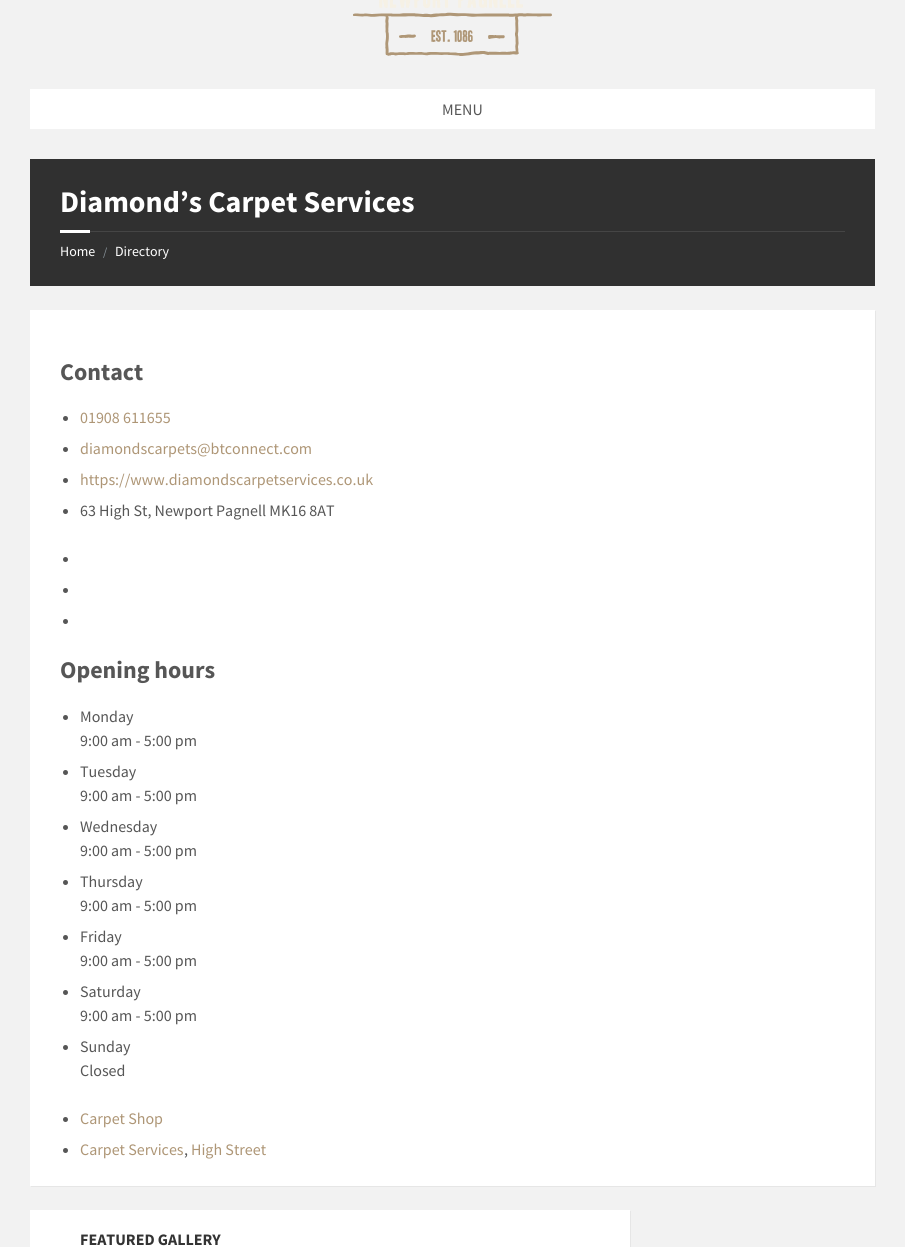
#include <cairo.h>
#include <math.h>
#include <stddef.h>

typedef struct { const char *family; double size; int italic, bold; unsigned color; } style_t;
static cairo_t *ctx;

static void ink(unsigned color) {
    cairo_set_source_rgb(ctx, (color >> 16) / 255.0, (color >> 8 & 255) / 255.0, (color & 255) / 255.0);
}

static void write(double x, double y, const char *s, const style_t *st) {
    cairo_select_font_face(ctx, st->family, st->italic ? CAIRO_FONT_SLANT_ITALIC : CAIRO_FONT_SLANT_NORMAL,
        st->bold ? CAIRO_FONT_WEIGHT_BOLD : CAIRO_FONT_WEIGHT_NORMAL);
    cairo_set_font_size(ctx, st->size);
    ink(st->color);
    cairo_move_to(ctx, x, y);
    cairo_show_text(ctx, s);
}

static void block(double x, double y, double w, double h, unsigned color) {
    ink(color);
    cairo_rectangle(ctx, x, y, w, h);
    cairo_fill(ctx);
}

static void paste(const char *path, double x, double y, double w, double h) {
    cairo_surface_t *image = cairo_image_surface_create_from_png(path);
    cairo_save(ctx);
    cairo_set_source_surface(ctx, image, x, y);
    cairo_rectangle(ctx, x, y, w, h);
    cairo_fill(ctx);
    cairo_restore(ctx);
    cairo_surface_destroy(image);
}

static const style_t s1 = {"Source Sans Pro", 16, 0, 0, 0x565656};
static const style_t s2 = {"Source Sans Pro", 30, 0, 1, 0xffffff};
static const style_t s3 = {"Source Sans Pro", 14, 0, 0, 0xffffff};
static const style_t s4 = {"Source Sans Pro", 12, 0, 0, 0x8a949b};
static const style_t s5 = {"Source Sans Pro", 24, 0, 1, 0x565656};
static const style_t s6 = {"Source Sans Pro", 16, 0, 0, 0xae9676};
static const style_t s7 = {"Source Sans Pro", 16, 0, 1, 0x333333};

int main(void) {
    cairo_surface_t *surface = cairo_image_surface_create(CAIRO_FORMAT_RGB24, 905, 1247);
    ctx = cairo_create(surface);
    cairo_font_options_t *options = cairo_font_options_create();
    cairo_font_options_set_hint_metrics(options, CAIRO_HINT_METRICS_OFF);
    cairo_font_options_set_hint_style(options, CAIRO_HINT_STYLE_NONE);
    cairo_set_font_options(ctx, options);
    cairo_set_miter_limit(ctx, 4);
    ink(0xf2f2f2);
    cairo_paint(ctx);
    paste("pic1.png", 353, 0, 199, 56);
    block(30, 89, 845, 40, 0xffffff);
    write(442, 115, "MENU", &s1);
    block(30, 159, 845, 127, 0x303030);
    write(60, 212, "Diamond’s Carpet Services", &s2);
    block(90, 231, 755, 1, 0x454545);
    block(60, 230, 30, 3, 0xffffff);
    write(60, 256, "Home", &s3);
    write(103, 256, "/", &s4);
    write(115, 256, "Directory", &s3);
    ink(0xe6e6e6);
    cairo_new_path(ctx);
    cairo_move_to(ctx, 31, 1186);
    cairo_line_to(ctx, 31, 1187);
    cairo_line_to(ctx, 876, 1187);
    cairo_line_to(ctx, 876, 311);
    cairo_line_to(ctx, 875, 311);
    cairo_line_to(ctx, 875, 1186);
    cairo_close_path(ctx);
    cairo_fill(ctx);
    block(30, 310, 845, 876, 0xffffff);
    write(60, 380, "Contact", &s5);
    cairo_new_path(ctx);
    cairo_arc(ctx, 65.5, 418.5, 2.5, 0, 2 * M_PI);
    cairo_fill(ctx);
    write(80, 423, "01908 611655", &s6);
    ink(0x565656);
    cairo_new_path(ctx);
    cairo_arc(ctx, 65.5, 449.5, 2.5, 0, 2 * M_PI);
    cairo_fill(ctx);
    write(80, 454, "diamondscarpets@btconnect.com", &s6);
    ink(0x565656);
    cairo_new_path(ctx);
    cairo_arc(ctx, 65.5, 480.5, 2.5, 0, 2 * M_PI);
    cairo_fill(ctx);
    write(80, 485, "https://www.diamondscarpetservices.co.uk", &s6);
    ink(0x565656);
    cairo_new_path(ctx);
    cairo_arc(ctx, 65.5, 511.5, 2.5, 0, 2 * M_PI);
    cairo_fill(ctx);
    write(80, 516, "63 High St, Newport Pagnell MK16 8AT", &s1);
    cairo_new_path(ctx);
    cairo_arc(ctx, 65.5, 559.5, 2.5, 0, 2 * M_PI);
    cairo_fill(ctx);
    cairo_arc(ctx, 65.5, 590.5, 2.5, 0, 2 * M_PI);
    cairo_fill(ctx);
    cairo_arc(ctx, 65.5, 621.5, 2.5, 0, 2 * M_PI);
    cairo_fill(ctx);
    write(60, 678, "Opening hours", &s5);
    cairo_new_path(ctx);
    cairo_arc(ctx, 65.5, 717.5, 2.5, 0, 2 * M_PI);
    cairo_fill(ctx);
    write(80, 722, "Monday", &s1);
    write(80, 746, "9:00 am - 5:00 pm", &s1);
    cairo_new_path(ctx);
    cairo_arc(ctx, 65.5, 772.5, 2.5, 0, 2 * M_PI);
    cairo_fill(ctx);
    write(80, 777, "Tuesday", &s1);
    write(80, 801, "9:00 am - 5:00 pm", &s1);
    cairo_new_path(ctx);
    cairo_arc(ctx, 65.5, 827.5, 2.5, 0, 2 * M_PI);
    cairo_fill(ctx);
    write(80, 832, "Wednesday", &s1);
    write(80, 856, "9:00 am - 5:00 pm", &s1);
    cairo_new_path(ctx);
    cairo_arc(ctx, 65.5, 882.5, 2.5, 0, 2 * M_PI);
    cairo_fill(ctx);
    write(80, 887, "Thursday", &s1);
    write(80, 911, "9:00 am - 5:00 pm", &s1);
    cairo_new_path(ctx);
    cairo_arc(ctx, 65.5, 937.5, 2.5, 0, 2 * M_PI);
    cairo_fill(ctx);
    write(80, 942, "Friday", &s1);
    write(80, 966, "9:00 am - 5:00 pm", &s1);
    cairo_new_path(ctx);
    cairo_arc(ctx, 65.5, 992.5, 2.5, 0, 2 * M_PI);
    cairo_fill(ctx);
    write(80, 997, "Saturday", &s1);
    write(80, 1021, "9:00 am - 5:00 pm", &s1);
    cairo_new_path(ctx);
    cairo_arc(ctx, 65.5, 1047.5, 2.5, 0, 2 * M_PI);
    cairo_fill(ctx);
    write(80, 1052, "Sunday", &s1);
    write(80, 1076, "Closed", &s1);
    cairo_new_path(ctx);
    cairo_arc(ctx, 65.5, 1119.5, 2.5, 0, 2 * M_PI);
    cairo_fill(ctx);
    write(80, 1124, "Carpet Shop", &s6);
    ink(0x565656);
    cairo_new_path(ctx);
    cairo_arc(ctx, 65.5, 1150.5, 2.5, 0, 2 * M_PI);
    cairo_fill(ctx);
    write(80, 1155, "Carpet Services", &s6);
    write(191, 1155, "High Street", &s6);
    write(184, 1155, ",", &s1);
    ink(0xe6e6e6);
    cairo_new_path(ctx);
    cairo_move_to(ctx, 31, 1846);
    cairo_line_to(ctx, 31, 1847);
    cairo_line_to(ctx, 631, 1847);
    cairo_line_to(ctx, 631, 1211);
    cairo_line_to(ctx, 630, 1211);
    cairo_line_to(ctx, 630, 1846);
    cairo_close_path(ctx);
    cairo_fill(ctx);
    block(30, 1210, 600, 37, 0xffffff);
    write(80, 1245, "FEATURED GALLERY", &s7);
    cairo_surface_write_to_png(surface, "screenshot.png");
    cairo_font_options_destroy(options);
    cairo_destroy(ctx);
    cairo_surface_destroy(surface);
    return 0;
}
